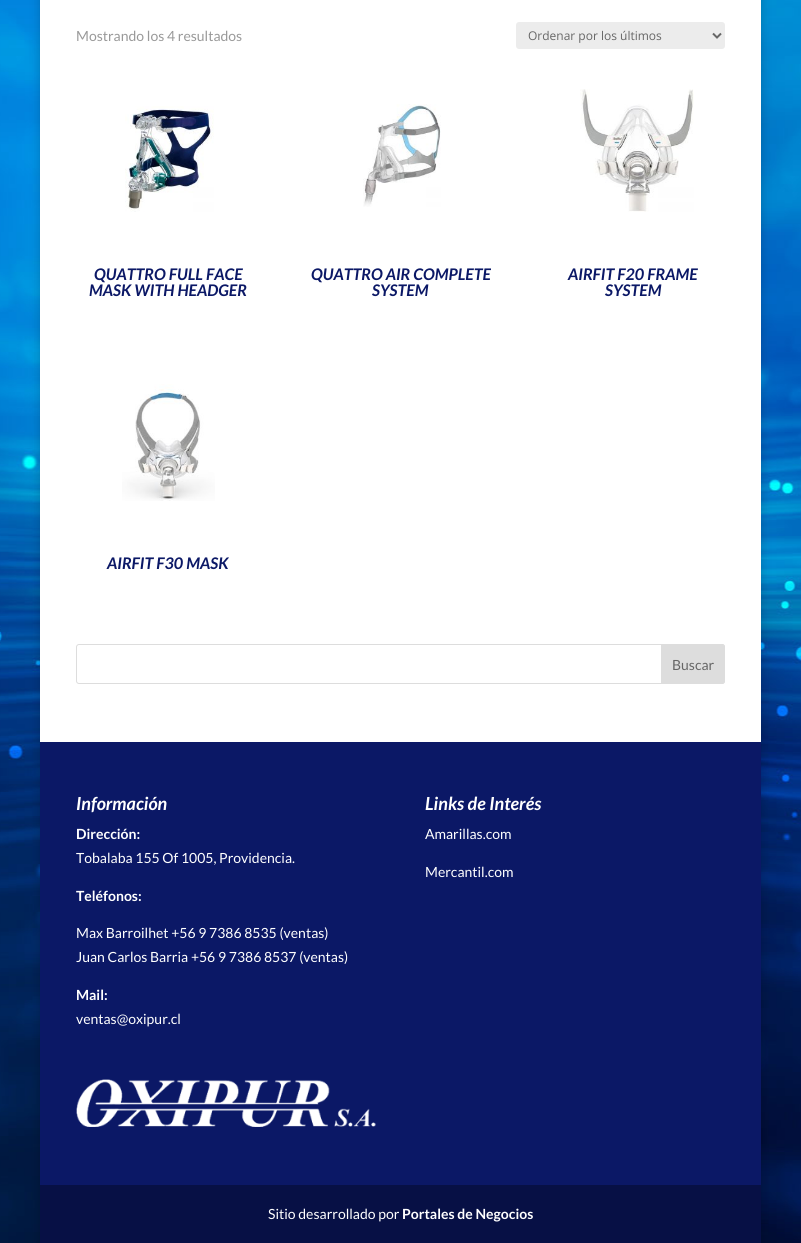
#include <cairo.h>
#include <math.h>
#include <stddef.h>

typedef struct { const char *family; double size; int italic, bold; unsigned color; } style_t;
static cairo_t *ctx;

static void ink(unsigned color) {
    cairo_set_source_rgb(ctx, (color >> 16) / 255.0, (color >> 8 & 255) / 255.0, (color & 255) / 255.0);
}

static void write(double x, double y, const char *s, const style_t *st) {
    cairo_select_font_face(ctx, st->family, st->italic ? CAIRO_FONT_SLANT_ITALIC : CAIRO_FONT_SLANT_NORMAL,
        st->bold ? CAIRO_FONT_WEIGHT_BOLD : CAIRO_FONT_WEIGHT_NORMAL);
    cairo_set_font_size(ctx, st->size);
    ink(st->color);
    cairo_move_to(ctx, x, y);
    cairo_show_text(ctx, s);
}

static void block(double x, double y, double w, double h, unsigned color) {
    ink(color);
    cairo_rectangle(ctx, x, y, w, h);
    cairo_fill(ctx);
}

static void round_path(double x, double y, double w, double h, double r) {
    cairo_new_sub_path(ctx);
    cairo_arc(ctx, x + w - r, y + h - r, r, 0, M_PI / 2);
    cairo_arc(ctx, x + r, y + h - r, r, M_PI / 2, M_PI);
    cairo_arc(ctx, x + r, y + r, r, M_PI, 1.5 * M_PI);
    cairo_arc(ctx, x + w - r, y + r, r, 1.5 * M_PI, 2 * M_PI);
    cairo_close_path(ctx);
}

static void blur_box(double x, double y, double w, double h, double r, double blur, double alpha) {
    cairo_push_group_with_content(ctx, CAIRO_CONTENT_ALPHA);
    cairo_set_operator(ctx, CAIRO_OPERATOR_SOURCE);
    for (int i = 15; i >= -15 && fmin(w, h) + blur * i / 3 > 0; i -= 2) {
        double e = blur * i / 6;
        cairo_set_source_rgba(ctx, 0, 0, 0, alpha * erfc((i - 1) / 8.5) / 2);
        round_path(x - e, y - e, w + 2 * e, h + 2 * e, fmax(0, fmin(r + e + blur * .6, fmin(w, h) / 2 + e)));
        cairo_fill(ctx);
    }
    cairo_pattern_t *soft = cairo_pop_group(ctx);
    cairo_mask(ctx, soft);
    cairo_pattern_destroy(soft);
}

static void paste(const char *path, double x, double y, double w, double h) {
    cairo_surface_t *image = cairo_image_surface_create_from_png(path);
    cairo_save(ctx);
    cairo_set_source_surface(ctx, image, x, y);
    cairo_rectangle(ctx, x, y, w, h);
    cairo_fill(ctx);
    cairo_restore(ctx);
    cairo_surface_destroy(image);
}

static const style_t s1 = {"Lato", 14, 0, 0, 0x999999};
static const style_t s2 = {"Open Sans", 12, 0, 0, 0x666666};
static const style_t s3 = {"Lato", 16, 1, 1, 0x0b1866};
static const style_t s4 = {"Lato", 14, 0, 0, 0x666666};
static const style_t s5 = {"Lato", 18, 1, 1, 0xffffff};
static const style_t s6 = {"Lato", 14, 0, 1, 0xffffff};
static const style_t s7 = {"Lato", 14, 0, 0, 0xffffff};

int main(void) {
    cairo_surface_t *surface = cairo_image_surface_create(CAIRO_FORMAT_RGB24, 801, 1243);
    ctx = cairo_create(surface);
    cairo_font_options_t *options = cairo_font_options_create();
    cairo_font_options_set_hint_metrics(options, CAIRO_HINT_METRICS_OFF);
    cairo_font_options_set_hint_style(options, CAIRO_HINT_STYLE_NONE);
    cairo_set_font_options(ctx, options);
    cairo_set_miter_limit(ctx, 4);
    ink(0xffffff);
    cairo_paint(ctx);
    paste("pic1.png", 0, 0, 801, 1243);
    ink(0x000000);
    blur_box(40, -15, 721, 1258, 0, 5, 0.2);
    block(40, 0, 721, 742, 0xffffff);
    write(76, 41, "Mostrando los 4 resultados", &s1);
    ink(0xececec);
    round_path(516, 22, 209, 27, 3);
    cairo_fill(ctx);
    cairo_new_path(ctx);
    cairo_move_to(ctx, 713, 33.5);
    cairo_line_to(ctx, 717, 37.5);
    cairo_line_to(ctx, 721, 33.5);
    ink(0x666666);
    cairo_stroke(ctx);
    write(528, 40, "Ordenar por los últimos", &s2);
    paste("pic2.png", 125, 106, 89, 106);
    write(94, 280, "QUATTRO FULL FACE", &s3);
    write(89, 296, "MASK WITH HEADGER", &s3);
    paste("pic3.png", 363, 104, 78, 103);
    write(311, 280, "QUATTRO AIR COMPLETE", &s3);
    write(372, 296, "SYSTEM", &s3);
    paste("pic4.png", 580, 89, 114, 123);
    write(568, 280, "AIRFIT F20 FRAME", &s3);
    write(605, 296, "SYSTEM", &s3);
    paste("pic5.png", 122, 384, 93, 117);
    write(107, 569, "AIRFIT F30 MASK", &s3);
    round_path(76.5, 644.5, 648, 39, 2.5);
    ink(0xdddddd);
    cairo_set_line_width(ctx, 1);
    cairo_stroke(ctx);
    cairo_new_path(ctx);
    cairo_move_to(ctx, 661.5, 644.5);
    cairo_line_to(ctx, 722, 644.5);
    cairo_curve_to(ctx, 723.5, 644.5, 724.5, 645.5, 724.5, 647);
    cairo_line_to(ctx, 724.5, 681);
    cairo_curve_to(ctx, 724.5, 682.5, 723.5, 683.5, 722, 683.5);
    cairo_line_to(ctx, 661.5, 683.5);
    cairo_close_path(ctx);
    cairo_fill_preserve(ctx);
    cairo_stroke(ctx);
    write(672, 670, "Buscar", &s4);
    block(40, 742, 721, 443, 0x0b1866);
    write(76, 810, "Información", &s5);
    write(76, 839, "Dirección:", &s6);
    write(76, 863, "Tobalaba 155 Of 1005, Providencia.", &s7);
    write(76, 901, "Teléfonos:", &s6);
    write(76, 938, "Max Barroilhet +56 9 7386 8535 (ventas)", &s7);
    write(76, 962, "Juan Carlos Barria +56 9 7386 8537 (ventas)", &s7);
    write(76, 1000, "Mail:", &s6);
    write(76, 1024, "ventas@oxipur.cl", &s7);
    write(425, 810, "Links de Interés", &s5);
    write(425, 839, "Amarillas.com", &s7);
    write(425, 877, "Mercantil.com", &s7);
    paste("pic6.png", 76, 1079, 300, 48);
    block(40, 1185, 721, 58, 0x071045);
    write(268, 1219, "Sitio desarrollado por", &s7);
    write(402, 1219, "Portales de Negocios", &s6);
    cairo_surface_write_to_png(surface, "screenshot.png");
    cairo_font_options_destroy(options);
    cairo_destroy(ctx);
    cairo_surface_destroy(surface);
    return 0;
}
